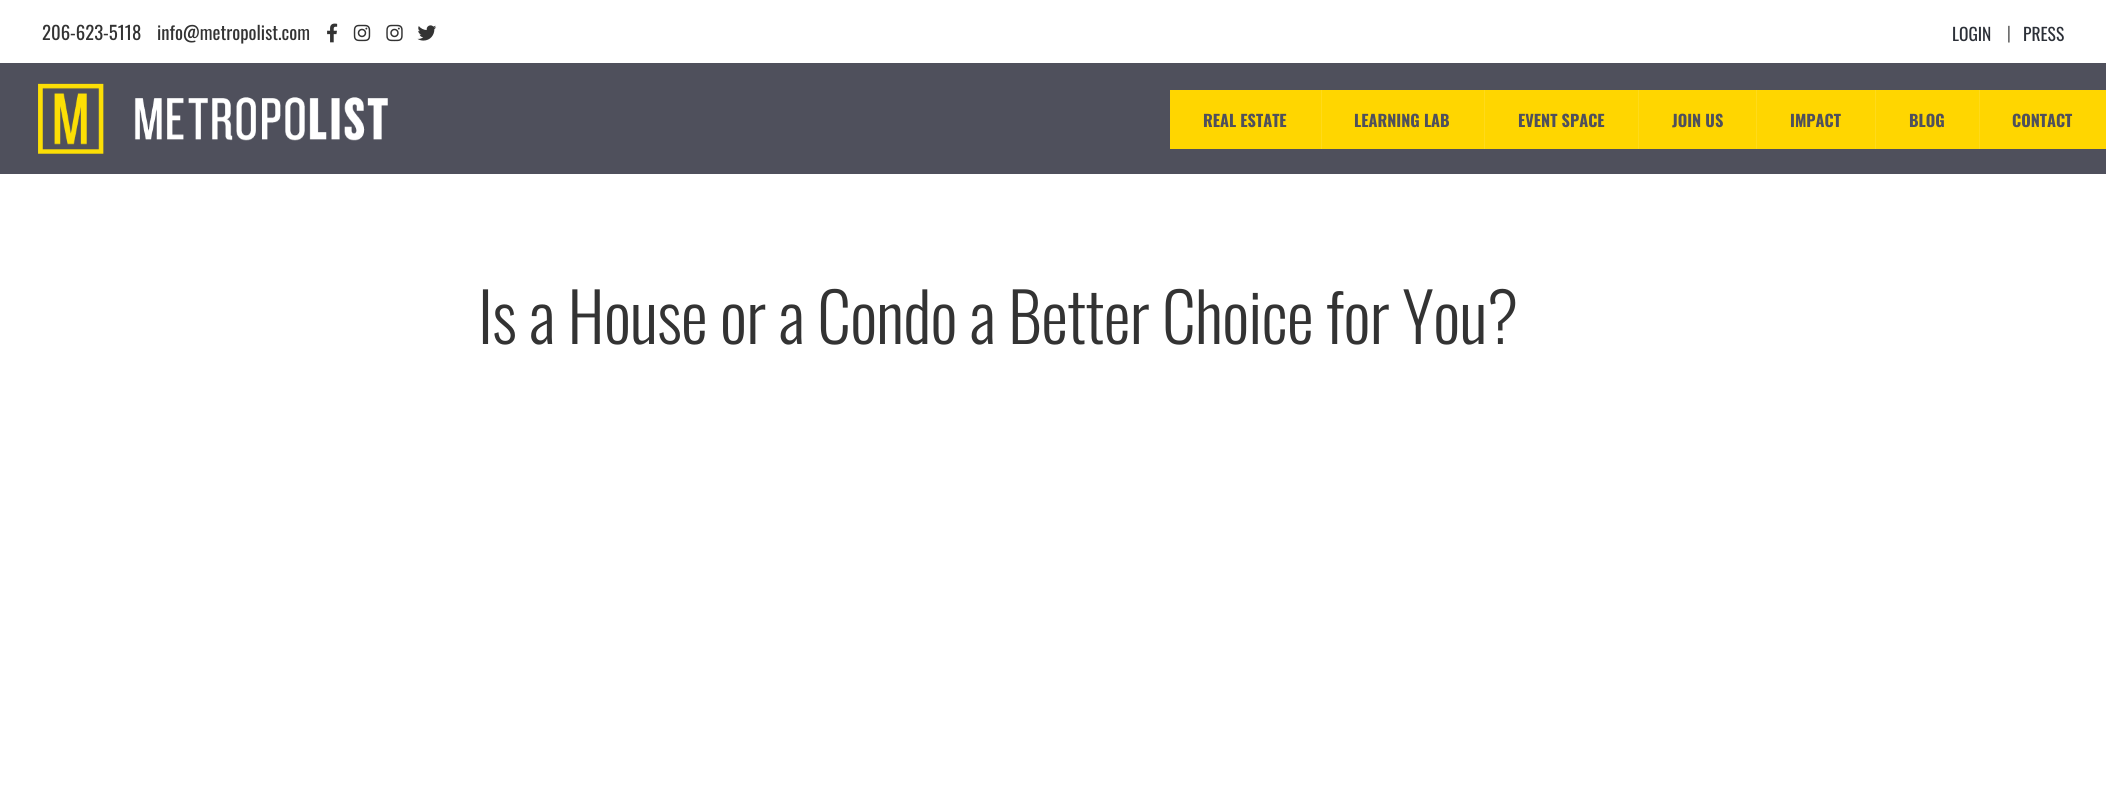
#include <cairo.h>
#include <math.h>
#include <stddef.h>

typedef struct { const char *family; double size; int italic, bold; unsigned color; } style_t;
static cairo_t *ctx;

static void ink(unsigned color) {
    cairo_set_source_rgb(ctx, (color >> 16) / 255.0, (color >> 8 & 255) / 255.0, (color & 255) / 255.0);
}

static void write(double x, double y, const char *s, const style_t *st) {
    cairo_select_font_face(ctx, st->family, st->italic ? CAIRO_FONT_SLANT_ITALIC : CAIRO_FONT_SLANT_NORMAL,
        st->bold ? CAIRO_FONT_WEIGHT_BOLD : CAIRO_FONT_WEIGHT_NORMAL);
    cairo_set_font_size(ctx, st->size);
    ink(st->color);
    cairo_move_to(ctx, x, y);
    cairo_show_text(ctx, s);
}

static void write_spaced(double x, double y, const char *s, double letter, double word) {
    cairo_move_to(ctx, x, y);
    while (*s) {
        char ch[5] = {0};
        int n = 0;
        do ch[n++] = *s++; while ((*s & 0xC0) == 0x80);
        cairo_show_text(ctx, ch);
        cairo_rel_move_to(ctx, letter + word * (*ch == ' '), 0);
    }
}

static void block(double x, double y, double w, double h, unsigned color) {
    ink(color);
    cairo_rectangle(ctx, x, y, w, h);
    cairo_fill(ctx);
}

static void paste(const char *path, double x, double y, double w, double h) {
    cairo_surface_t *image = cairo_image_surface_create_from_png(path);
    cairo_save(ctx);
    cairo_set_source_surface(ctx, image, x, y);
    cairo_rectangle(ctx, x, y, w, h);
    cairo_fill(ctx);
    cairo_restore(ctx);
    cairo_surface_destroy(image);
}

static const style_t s1 = {"Oswald", 18.75, 0, 0, 0x333333};
static const style_t s2 = {"Oswald", 17.5, 0, 0, 0x2c3038};
static const style_t s3 = {"Oswald Light", 17.5, 0, 0, 0x333333};
static const style_t s4 = {"Oswald", 16.25, 0, 1, 0x4f505c};

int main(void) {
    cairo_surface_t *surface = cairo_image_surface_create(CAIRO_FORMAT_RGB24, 2106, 791);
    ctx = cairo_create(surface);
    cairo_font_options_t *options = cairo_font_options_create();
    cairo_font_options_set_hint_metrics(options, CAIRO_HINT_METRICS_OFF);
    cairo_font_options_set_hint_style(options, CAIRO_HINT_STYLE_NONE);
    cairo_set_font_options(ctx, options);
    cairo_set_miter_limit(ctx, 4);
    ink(0xffffff);
    cairo_paint(ctx);
    write(42, 40, "206-623-5118", &s1);
    write(157, 40, "info@metropolist.com", &s1);
    paste("pic1.png", 327, 23, 11, 20);
    paste("pic2.png", 353, 24, 18, 18);
    paste("pic3.png", 386, 24, 17, 18);
    paste("pic4.png", 417, 25, 20, 16);
    write(1952, 41, "LOGIN", &s2);
    write(2007, 40, "|", &s3);
    write(2023, 41, "PRESS", &s2);
    block(0, 63, 2106, 111, 0x4f505c);
    paste("pic5.png", 38, 83, 350, 71);
    block(1170, 90, 151, 59, 0xffd600);
    write(1203, 127, "REAL ESTATE", &s4);
    block(1322, 90, 162, 59, 0xffd600);
    block(1321, 90, 1, 59, 0xffda1a);
    write(1354, 127, "LEARNING LAB", &s4);
    block(1485, 90, 153, 59, 0xffd600);
    block(1484, 90, 1, 59, 0xffda1a);
    write(1518, 127, "EVENT SPACE", &s4);
    block(1639, 90, 117, 59, 0xffd600);
    block(1638, 90, 1, 59, 0xffda1a);
    write(1672, 127, "JOIN US", &s4);
    block(1757, 90, 118, 59, 0xffd600);
    block(1756, 90, 1, 59, 0xffda1a);
    write(1790, 127, "IMPACT", &s4);
    block(1876, 90, 103, 59, 0xffd600);
    block(1875, 90, 1, 59, 0xffda1a);
    write(1909, 127, "BLOG", &s4);
    block(1980, 90, 126, 59, 0xffd600);
    block(1979, 90, 1, 59, 0xffda1a);
    write(2012, 127, "CONTACT", &s4);
    cairo_select_font_face(ctx, "Oswald Light", CAIRO_FONT_SLANT_NORMAL, CAIRO_FONT_WEIGHT_NORMAL);
    cairo_set_font_size(ctx, 67.5);
    ink(0x333333);
    write_spaced(478, 344, "Is a House or a Condo a Better Choice for You?", -0.7, 0);
    cairo_surface_write_to_png(surface, "screenshot.png");
    cairo_font_options_destroy(options);
    cairo_destroy(ctx);
    cairo_surface_destroy(surface);
    return 0;
}
